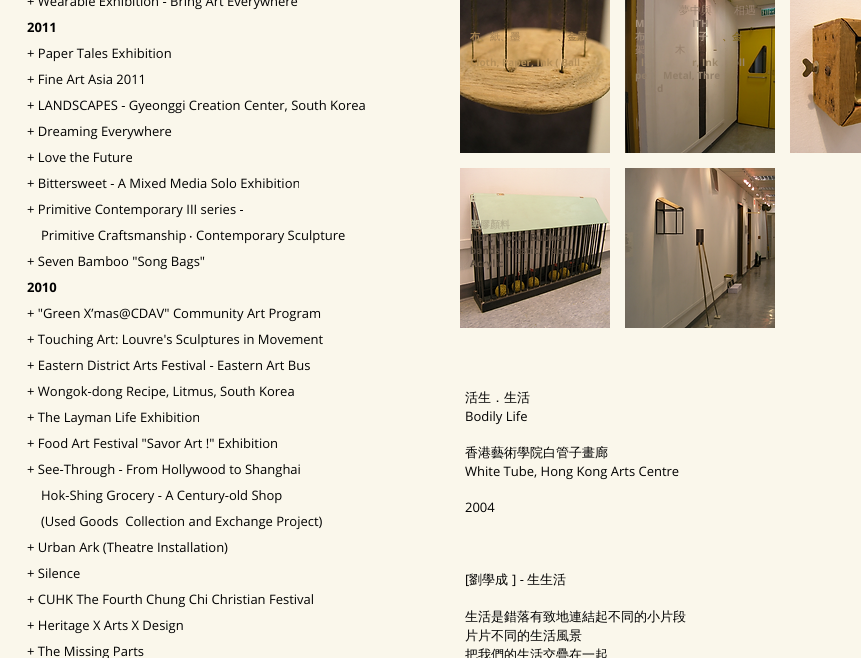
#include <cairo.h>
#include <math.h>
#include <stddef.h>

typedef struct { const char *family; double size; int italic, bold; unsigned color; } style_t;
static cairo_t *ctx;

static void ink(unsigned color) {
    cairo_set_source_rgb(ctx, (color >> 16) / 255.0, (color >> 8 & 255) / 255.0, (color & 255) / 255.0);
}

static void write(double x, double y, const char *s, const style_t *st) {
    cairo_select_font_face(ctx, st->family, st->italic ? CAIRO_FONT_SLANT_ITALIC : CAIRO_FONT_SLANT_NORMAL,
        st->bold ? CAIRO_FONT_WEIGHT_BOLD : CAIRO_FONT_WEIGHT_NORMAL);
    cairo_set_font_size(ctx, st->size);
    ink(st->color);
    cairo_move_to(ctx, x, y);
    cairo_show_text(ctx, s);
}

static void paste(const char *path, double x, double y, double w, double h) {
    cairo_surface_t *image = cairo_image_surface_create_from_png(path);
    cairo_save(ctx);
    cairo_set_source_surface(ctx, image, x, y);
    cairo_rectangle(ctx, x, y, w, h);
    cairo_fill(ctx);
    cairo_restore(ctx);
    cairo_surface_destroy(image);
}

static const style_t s1 = {"Open Sans", 13, 0, 0, 0x000000};
static const style_t s2 = {"Open Sans", 13, 0, 1, 0x000000};
static const style_t s3 = {"Noto Sans", 13, 0, 0, 0x000000};
static const style_t s4 = {"WenQuanYi Zen Hei", 10, 0, 1, 0xae8957};
static const style_t s5 = {"WenQuanYi Zen Hei", 10, 0, 1, 0x9b7848};
static const style_t s6 = {"Open Sans", 10, 0, 1, 0xb48e57};
static const style_t s7 = {"WenQuanYi Zen Hei Medium", 11, 0, 0, 0x99826e};
static const style_t s8 = {"Open Sans", 10, 0, 1, 0xa5917f};
static const style_t s9 = {"WenQuanYi Zen Hei", 10, 0, 1, 0x9e8a77};
static const style_t s10 = {"WenQuanYi Zen Hei", 10, 0, 1, 0xb49f8b};
static const style_t s11 = {"WenQuanYi Zen Hei", 10, 0, 1, 0x846a21};
static const style_t s12 = {"WenQuanYi Zen Hei", 10, 0, 1, 0x99826e};
static const style_t s13 = {"Open Sans", 10, 0, 1, 0x9a8568};
static const style_t s14 = {"Open Sans", 10, 0, 1, 0x917e68};
static const style_t s15 = {"Open Sans", 10, 0, 1, 0x8a7763};
static const style_t s16 = {"Open Sans", 10, 0, 1, 0xd3ccaa};
static const style_t s17 = {"WenQuanYi Zen Hei", 10, 0, 1, 0xb4ad90};
static const style_t s18 = {"Open Sans", 10, 0, 1, 0x4d4136};
static const style_t s19 = {"Open Sans", 10, 0, 1, 0x55483b};
static const style_t s20 = {"Open Sans", 10, 0, 1, 0x5c4e41};
static const style_t s21 = {"WenQuanYi Zen Hei Medium", 13, 0, 0, 0x000000};

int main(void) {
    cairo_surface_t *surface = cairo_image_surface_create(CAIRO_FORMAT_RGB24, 861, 658);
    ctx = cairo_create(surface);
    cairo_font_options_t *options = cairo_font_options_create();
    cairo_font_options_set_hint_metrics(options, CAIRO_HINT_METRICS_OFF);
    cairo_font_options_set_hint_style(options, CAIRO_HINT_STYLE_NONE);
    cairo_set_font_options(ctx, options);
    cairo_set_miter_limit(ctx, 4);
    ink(0xfaf7eb);
    cairo_paint(ctx);
    write(27, 6, "+ Wearable Exhibition - Bring Art Everywhere", &s1);
    write(27, 32, "2011", &s2);
    write(27, 58, "+ Paper Tales Exhibition", &s1);
    write(27, 84, "+ Fine Art Asia 2011", &s1);
    write(27, 110, "+ LANDSCAPES - Gyeonggi Creation Center, South Korea", &s1);
    write(27, 136, "+ Dreaming Everywhere", &s1);
    write(27, 162, "+ Love the Future", &s1);
    write(27, 188, "+ Bittersweet - A Mixed Media Solo Exhibition", &s1);
    write(27, 214, "+ Primitive Contemporary III series -", &s1);
    write(41, 240, "Primitive Craftsmanship", &s1);
    write(189, 240, "‧", &s3);
    write(196, 240, "Contemporary Sculpture", &s1);
    write(27, 266, "+ Seven Bamboo \"Song Bags\"", &s1);
    write(27, 292, "2010", &s2);
    write(27, 318, "+ \"Green X’mas@CDAV\" Community Art Program", &s1);
    write(27, 344, "+ Touching Art: Louvre's Sculptures in Movement", &s1);
    write(27, 370, "+ Eastern District Arts Festival - Eastern Art Bus", &s1);
    write(27, 396, "+ Wongok-dong Recipe, Litmus, South Korea", &s1);
    write(27, 422, "+ The Layman Life Exhibition", &s1);
    write(27, 448, "+ Food Art Festival \"Savor Art !\" Exhibition", &s1);
    write(27, 474, "+ See-Through - From Hollywood to Shanghai", &s1);
    write(41, 500, "Hok-Shing Grocery - A Century-old Shop", &s1);
    write(41, 526, "(Used Goods  Collection and Exchange Project)", &s1);
    write(27, 552, "+ Urban Ark (Theatre Installation)", &s1);
    write(27, 578, "+ Silence", &s1);
    write(27, 604, "+ CUHK The Fourth Chung Chi Christian Festival", &s1);
    write(27, 630, "+ Heritage X Arts X Design", &s1);
    write(27, 656, "+ The Missing Parts", &s1);
    paste("pic1.png", 460, 0, 150, 153);
    write(470, 40, "布、紙、墨", &s4);
    write(557, 40, "、金屬", &s5);
    write(470, 66, "Cloth, Paper, Ink ( Ball", &s6);
    paste("pic2.png", 625, 0, 150, 153);
    write(679, 14, "夢中與", &s7);
    write(734, 14, "相遇", &s7);
    write(635, 27, "M", &s8);
    write(692, 27, "ITH", &s8);
    write(635, 40, "布", &s9);
    write(698, 40, "子", &s10);
    write(722, 40, "、金", &s11);
    write(635, 53, "架", &s12);
    write(675, 53, "木", &s12);
    write(641, 66, "l", &s13);
    write(692, 66, "r, Ink", &s13);
    write(739, 66, "ll", &s13);
    write(635, 79, "pe", &s14);
    write(663, 79, "Metal, Thre", &s14);
    write(657, 92, "d", &s15);
    paste("pic3.png", 790, 0, 71, 153);
    paste("pic4.png", 460, 168, 150, 160);
    write(470, 202, "B", &s16);
    write(470, 228, "塑膠顏料", &s17);
    write(470, 241, "Iron, Wood, Rubber", &s18);
    write(470, 254, "bands, Plastic, Paper,", &s19);
    write(470, 267, "Acrylic", &s20);
    paste("pic5.png", 625, 168, 150, 160);
    write(465, 402, "活生．生活", &s21);
    write(465, 421, "Bodily Life", &s1);
    write(465, 457, "香港藝術學院白管子畫廊", &s21);
    write(465, 476, "White Tube, Hong Kong Arts Centre", &s1);
    write(465, 512, "2004", &s1);
    write(465, 584, "[", &s1);
    write(469, 584, "劉學成", &s21);
    write(512, 584, "] -", &s1);
    write(527, 584, "生生活", &s21);
    write(465, 621, "生活是錯落有致地連結起不同的小片段", &s21);
    write(465, 640, "片片不同的生活風景", &s21);
    write(465, 659, "把我們的生活交疊在一起", &s21);
    cairo_surface_write_to_png(surface, "screenshot.png");
    cairo_font_options_destroy(options);
    cairo_destroy(ctx);
    cairo_surface_destroy(surface);
    return 0;
}
